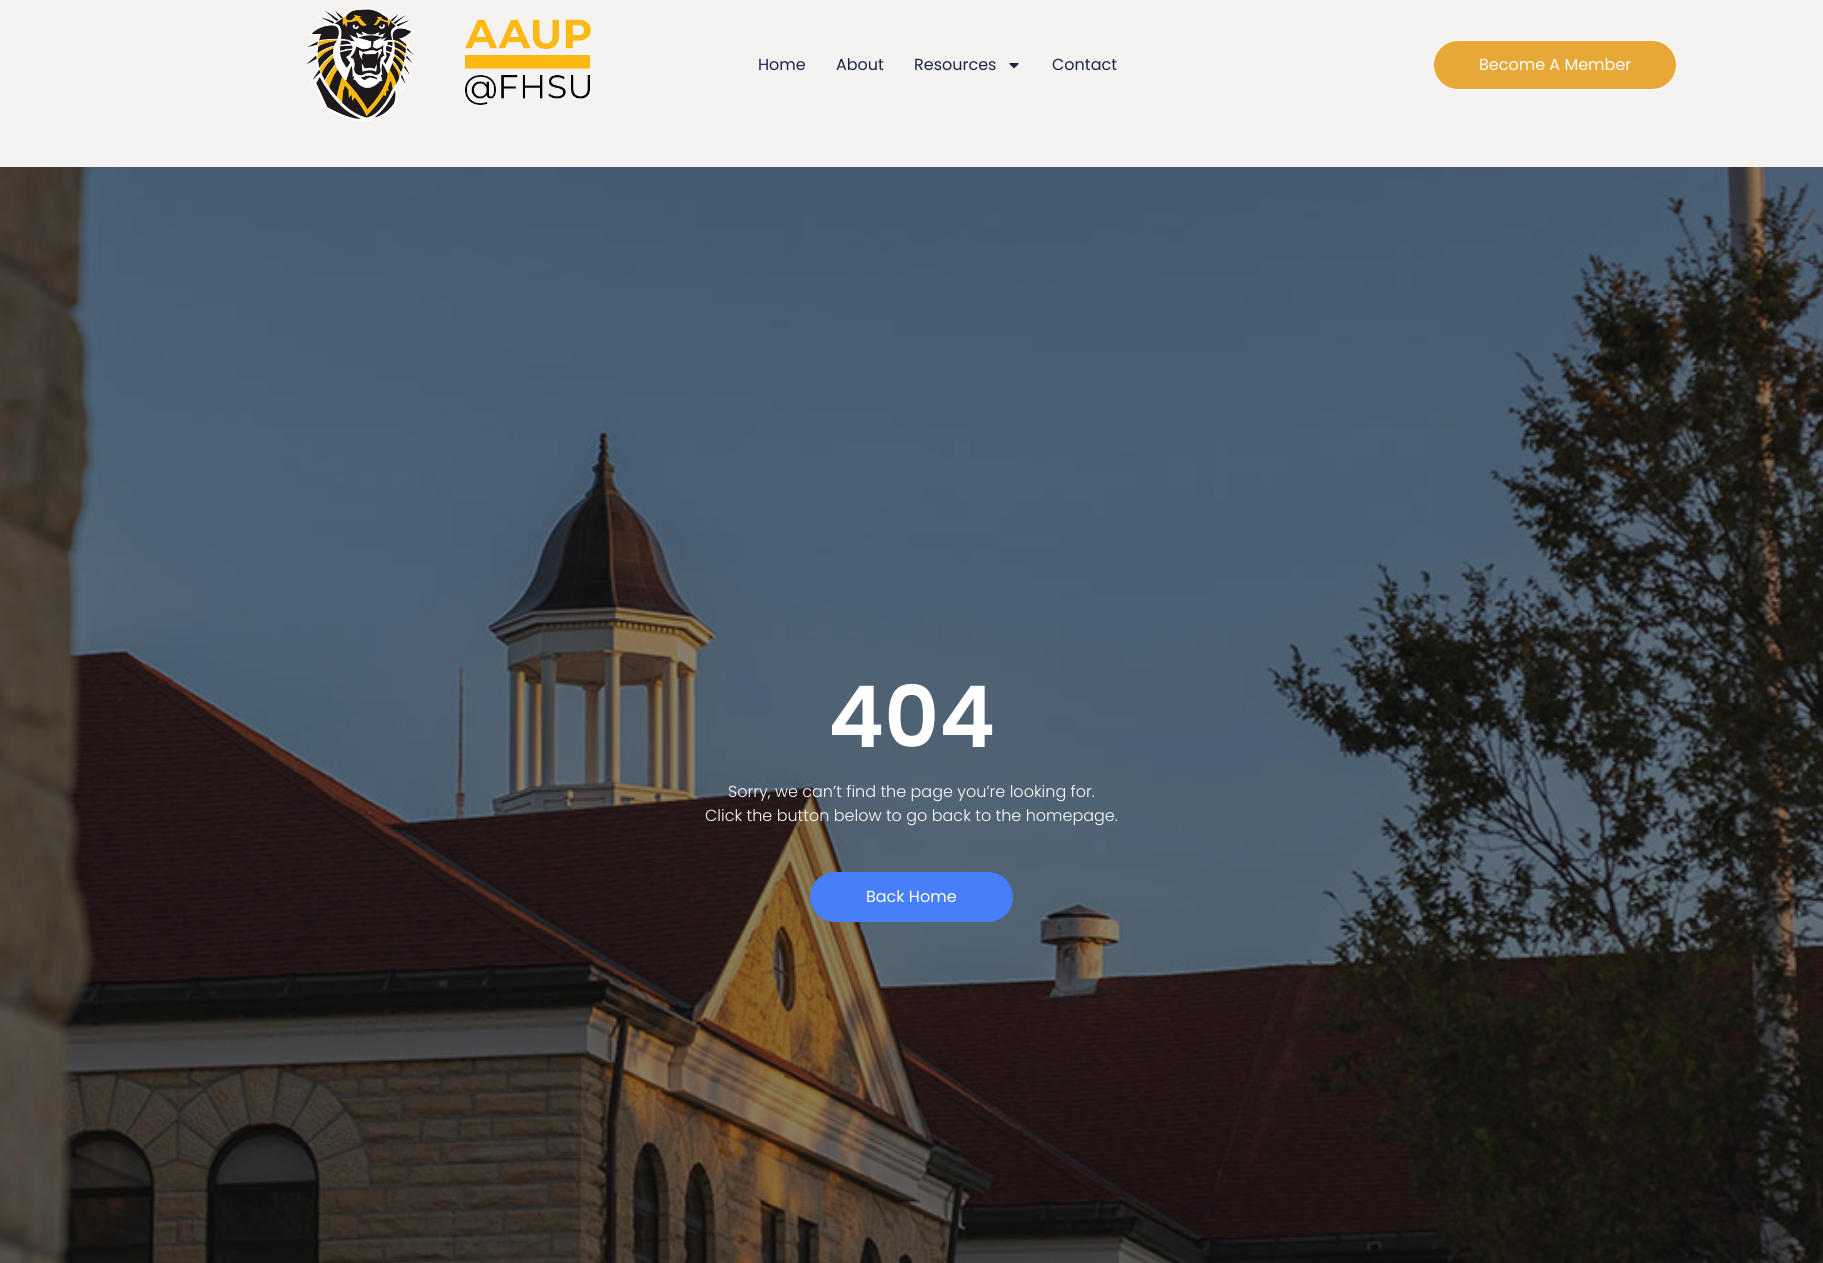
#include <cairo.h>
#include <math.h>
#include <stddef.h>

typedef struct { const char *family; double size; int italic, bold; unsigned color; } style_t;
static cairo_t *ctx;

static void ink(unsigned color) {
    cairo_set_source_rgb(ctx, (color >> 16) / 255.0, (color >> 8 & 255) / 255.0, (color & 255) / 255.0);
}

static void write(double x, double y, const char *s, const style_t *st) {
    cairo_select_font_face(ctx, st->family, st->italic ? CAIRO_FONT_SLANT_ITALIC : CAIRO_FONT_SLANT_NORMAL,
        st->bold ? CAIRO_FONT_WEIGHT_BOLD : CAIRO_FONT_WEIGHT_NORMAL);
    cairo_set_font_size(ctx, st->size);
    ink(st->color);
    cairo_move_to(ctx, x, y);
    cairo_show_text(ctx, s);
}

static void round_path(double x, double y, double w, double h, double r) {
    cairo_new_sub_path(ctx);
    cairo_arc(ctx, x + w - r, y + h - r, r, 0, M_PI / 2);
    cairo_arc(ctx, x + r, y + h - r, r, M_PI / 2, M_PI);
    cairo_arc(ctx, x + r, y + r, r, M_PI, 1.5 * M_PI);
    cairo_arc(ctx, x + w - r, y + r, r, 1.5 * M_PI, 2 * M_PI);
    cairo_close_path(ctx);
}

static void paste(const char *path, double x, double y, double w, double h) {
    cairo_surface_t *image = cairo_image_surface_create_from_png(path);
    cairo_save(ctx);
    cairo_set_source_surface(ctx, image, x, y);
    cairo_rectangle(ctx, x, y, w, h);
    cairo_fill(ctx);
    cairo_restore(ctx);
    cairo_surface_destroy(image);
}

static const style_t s1 = {"Poppins", 16, 0, 0, 0x1c244b};
static const style_t s2 = {"Poppins", 16, 0, 0, 0xffffff};
static const style_t s3 = {"Poppins SemiBold", 85, 0, 0, 0xffffff};
static const style_t s4 = {"Poppins Light", 16, 0, 0, 0xffffff};

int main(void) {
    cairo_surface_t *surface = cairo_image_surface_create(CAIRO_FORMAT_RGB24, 1823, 1263);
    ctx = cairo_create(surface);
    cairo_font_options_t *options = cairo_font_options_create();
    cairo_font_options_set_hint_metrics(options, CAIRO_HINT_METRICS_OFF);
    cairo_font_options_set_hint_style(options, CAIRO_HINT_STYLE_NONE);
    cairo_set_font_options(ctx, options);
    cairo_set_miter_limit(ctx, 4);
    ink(0xf4f3f2);
    cairo_paint(ctx);
    paste("pic1.png", 303, 8, 114, 114);
    paste("pic2.png", 465, 19, 126, 86);
    write(758, 70, "Home", &s1);
    write(836, 70, "About", &s1);
    write(914, 70, "Resources", &s1);
    paste("pic3.png", 1009, 63, 10, 6);
    write(1052, 70, "Contact", &s1);
    ink(0xe8a838);
    round_path(1433.5, 40.5, 243, 49, 24.5);
    cairo_fill_preserve(ctx);
    ink(0xffffff);
    cairo_set_line_width(ctx, 1);
    cairo_stroke(ctx);
    write(1479, 70, "Become A Member", &s2);
    paste("pic4.png", 0, 167, 1823, 1096);
    write(828, 747, "404", &s3);
    write(728, 797, "Sorry, we can’t find the page you’re looking for.", &s4);
    write(705, 821, "Click the button below to go back to the homepage.", &s4);
    ink(0x467ff7);
    round_path(810.5, 872.5, 202, 49, 24.5);
    cairo_fill_preserve(ctx);
    cairo_stroke(ctx);
    write(866, 902, "Back Home", &s2);
    cairo_surface_write_to_png(surface, "screenshot.png");
    cairo_font_options_destroy(options);
    cairo_destroy(ctx);
    cairo_surface_destroy(surface);
    return 0;
}
